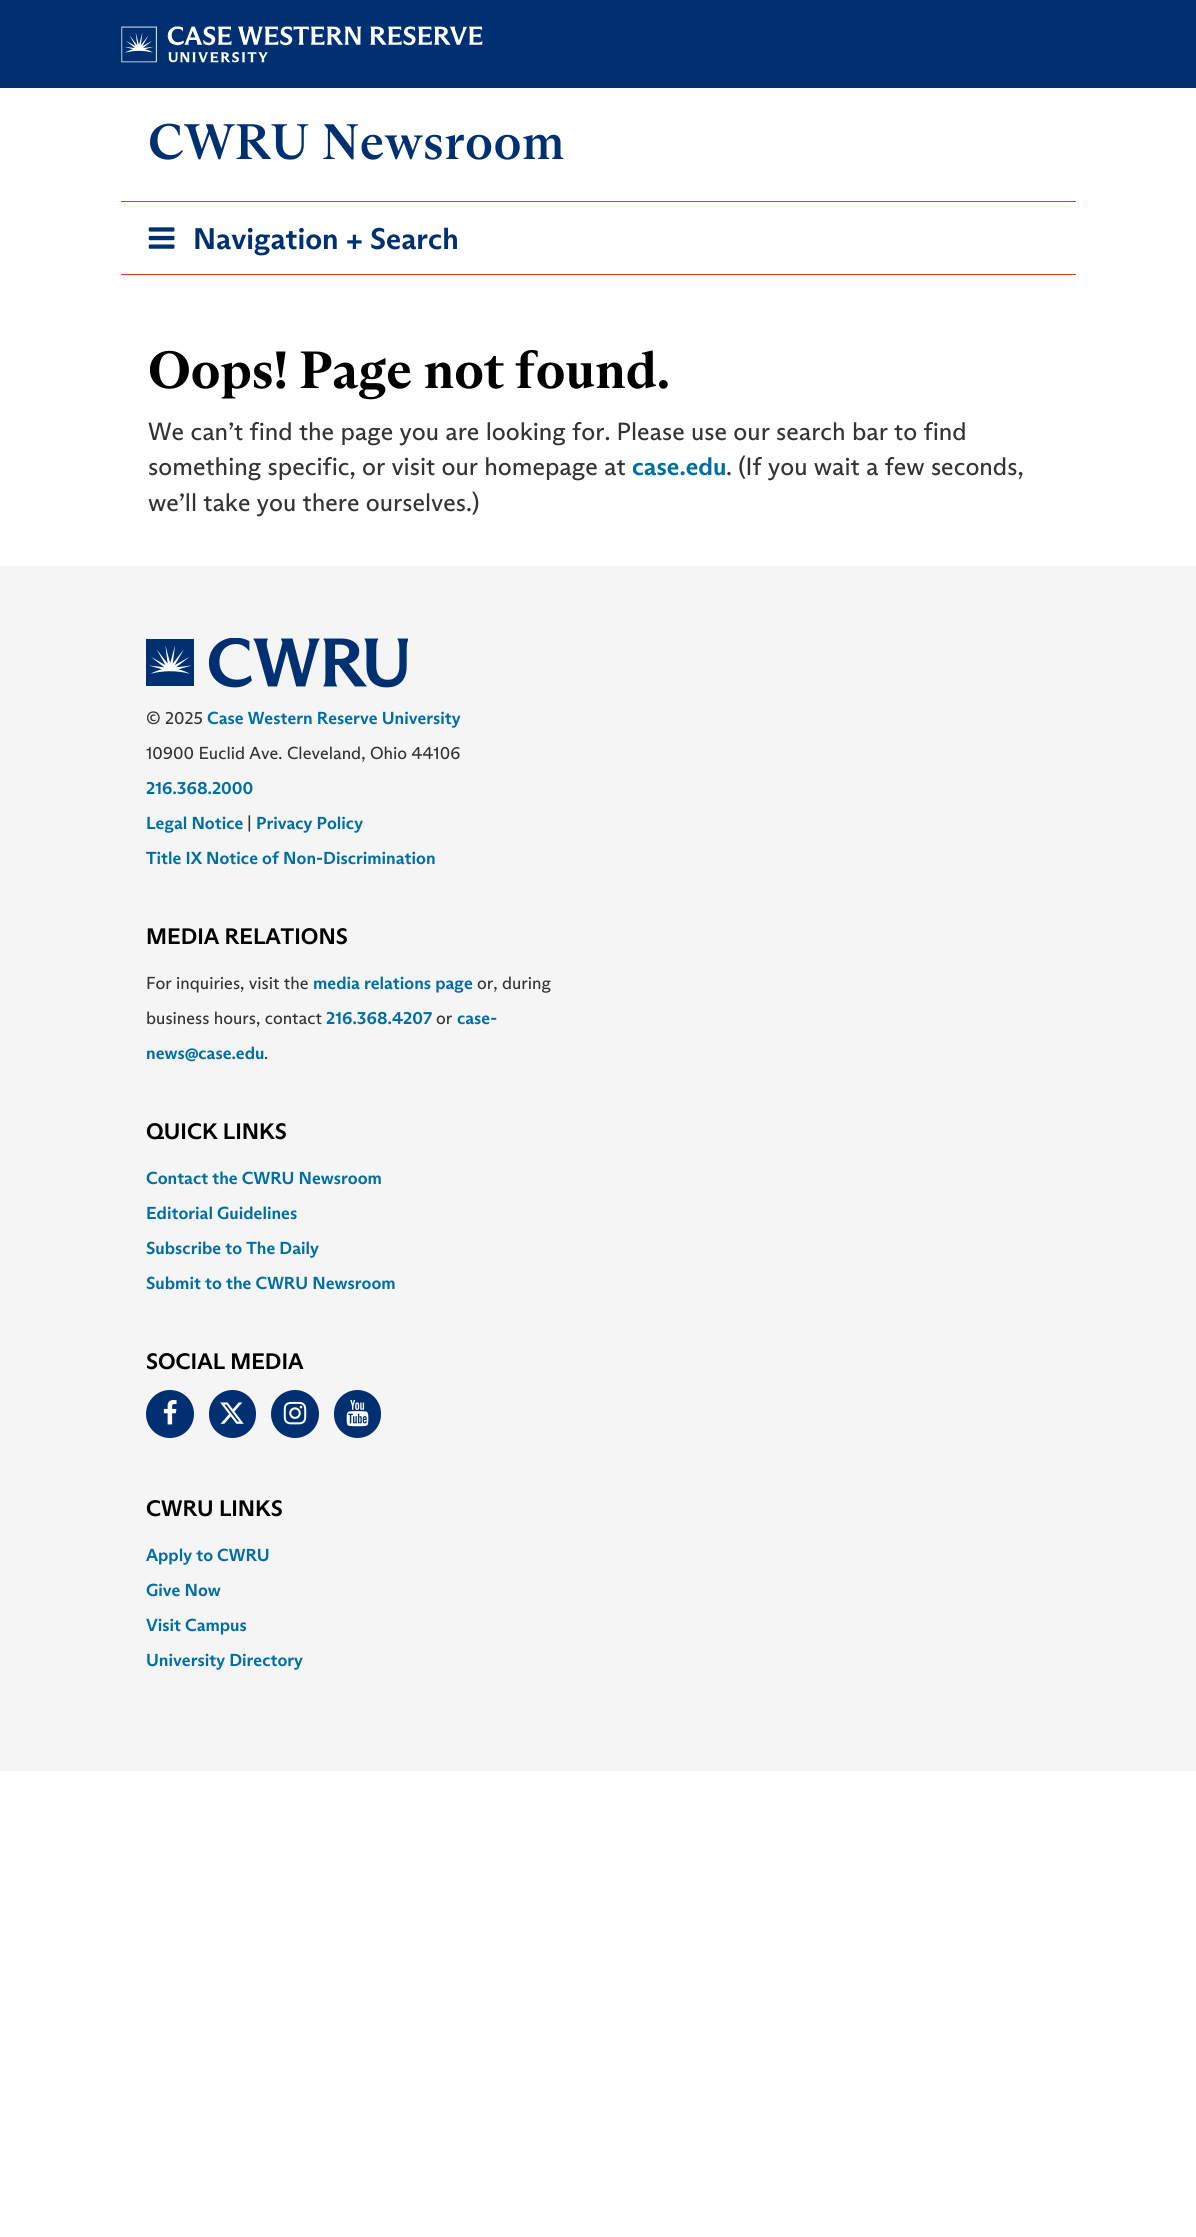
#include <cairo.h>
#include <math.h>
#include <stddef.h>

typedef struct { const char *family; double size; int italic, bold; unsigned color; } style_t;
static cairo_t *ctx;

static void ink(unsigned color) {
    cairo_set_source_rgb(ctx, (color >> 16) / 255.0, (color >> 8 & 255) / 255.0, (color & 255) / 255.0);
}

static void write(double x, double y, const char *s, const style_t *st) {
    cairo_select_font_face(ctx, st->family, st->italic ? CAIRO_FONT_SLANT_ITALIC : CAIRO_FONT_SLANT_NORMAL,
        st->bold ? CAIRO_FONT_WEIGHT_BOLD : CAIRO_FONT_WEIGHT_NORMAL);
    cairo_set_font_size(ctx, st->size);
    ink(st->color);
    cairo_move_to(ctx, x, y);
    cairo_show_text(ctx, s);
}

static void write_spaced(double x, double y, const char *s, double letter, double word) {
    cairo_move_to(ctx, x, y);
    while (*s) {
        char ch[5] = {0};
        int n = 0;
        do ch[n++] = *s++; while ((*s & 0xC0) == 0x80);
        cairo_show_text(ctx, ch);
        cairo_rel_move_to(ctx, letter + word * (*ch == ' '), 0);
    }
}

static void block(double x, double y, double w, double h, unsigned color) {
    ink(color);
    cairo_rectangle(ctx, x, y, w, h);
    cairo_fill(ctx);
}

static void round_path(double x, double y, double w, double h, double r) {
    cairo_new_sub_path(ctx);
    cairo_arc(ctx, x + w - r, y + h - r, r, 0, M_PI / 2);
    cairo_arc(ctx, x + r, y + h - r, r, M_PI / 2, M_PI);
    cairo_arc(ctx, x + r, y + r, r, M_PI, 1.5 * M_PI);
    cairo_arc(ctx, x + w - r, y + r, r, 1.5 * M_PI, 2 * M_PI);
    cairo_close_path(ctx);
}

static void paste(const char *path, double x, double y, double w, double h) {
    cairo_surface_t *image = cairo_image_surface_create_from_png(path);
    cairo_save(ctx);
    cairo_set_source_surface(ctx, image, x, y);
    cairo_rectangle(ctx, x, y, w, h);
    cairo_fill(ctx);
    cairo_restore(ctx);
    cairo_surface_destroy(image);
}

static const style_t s1 = {"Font", 30, 0, 1, 0x003071};
static const style_t s2 = {"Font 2", 52.5, 0, 1, 0x000000};
static const style_t s3 = {"Font", 25, 0, 0, 0x333333};
static const style_t s4 = {"Font", 25, 0, 1, 0x006da3};
static const style_t s5 = {"Font", 17.5, 0, 0, 0x333333};
static const style_t s6 = {"Font", 17.5, 0, 1, 0x006da3};
static const style_t s7 = {"Font", 22.5, 0, 1, 0x000000};

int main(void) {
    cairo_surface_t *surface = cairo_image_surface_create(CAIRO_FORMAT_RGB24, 1196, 2237);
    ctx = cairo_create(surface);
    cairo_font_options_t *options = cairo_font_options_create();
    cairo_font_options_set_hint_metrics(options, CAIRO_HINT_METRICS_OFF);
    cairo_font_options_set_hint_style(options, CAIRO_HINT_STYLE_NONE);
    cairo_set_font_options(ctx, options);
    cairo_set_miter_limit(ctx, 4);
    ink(0xffffff);
    cairo_paint(ctx);
    block(0, 0, 1196, 88, 0x003071);
    paste("pic1.png", 121, 26, 362, 37);
    cairo_select_font_face(ctx, "Font Medium", CAIRO_FONT_SLANT_NORMAL, CAIRO_FONT_WEIGHT_NORMAL);
    cairo_set_font_size(ctx, 50);
    write_spaced(148, 159, "CWRU Newsroom", 0.5, 0);
    block(121, 201, 955, 1, 0xd63d1f);
    block(121, 274, 955, 1, 0xd63d1f);
    paste("pic2.png", 148, 227, 27, 22);
    write(193, 249, "Navigation + Search", &s1);
    write(148, 388, "Oops! Page not found.", &s2);
    write(148, 440, "We can’t find the page you are looking for. Please use our search bar to find", &s3);
    write(148, 475, "something specific, or visit our homepage at", &s3);
    write(632, 475, "case.edu", &s4);
    write(726, 475, ". (If you wait a few seconds,", &s3);
    write(148, 511, "we’ll take you there ourselves.)", &s3);
    block(0, 566, 1196, 1205, 0xf5f5f5);
    paste("pic3.png", 146, 638, 262, 50);
    write(146, 724, "© 2025", &s5);
    write(207, 724, "Case Western Reserve University", &s6);
    write(146, 759, "10900 Euclid Ave. Cleveland, Ohio 44106", &s5);
    write(146, 794, "216.368.2000", &s6);
    write(146, 829, "Legal Notice", &s6);
    write(247, 829, "|", &s5);
    write(256, 829, "Privacy Policy", &s6);
    write(146, 864, "Title IX Notice of Non-Discrimination", &s6);
    write(146, 944, "MEDIA RELATIONS", &s7);
    write(146, 989, "For inquiries, visit the", &s5);
    write(313, 989, "media relations page", &s6);
    write(477, 989, "or, during", &s5);
    write(146, 1024, "business hours, contact", &s5);
    write(326, 1024, "216.368.4207", &s6);
    write(436, 1024, "or", &s5);
    write(457, 1024, "case-", &s6);
    write(146, 1059, "news@case.edu", &s6);
    write(264, 1059, ".", &s5);
    write(146, 1139, "QUICK LINKS", &s7);
    write(146, 1184, "Contact the CWRU Newsroom", &s6);
    write(146, 1219, "Editorial Guidelines", &s6);
    write(146, 1254, "Subscribe to The Daily", &s6);
    write(146, 1289, "Submit to the CWRU Newsroom", &s6);
    write(146, 1369, "SOCIAL MEDIA", &s7);
    ink(0x003071);
    cairo_new_path(ctx);
    cairo_arc(ctx, 170, 1414, 24, 0, 2 * M_PI);
    cairo_fill(ctx);
    paste("pic4.png", 163, 1400, 14, 25);
    round_path(209, 1390, 47, 48, 23.5);
    cairo_fill(ctx);
    paste("pic5.png", 220, 1402, 24, 22);
    cairo_arc(ctx, 295, 1414, 24, 0, 2 * M_PI);
    cairo_fill(ctx);
    paste("pic6.png", 283, 1401, 24, 24);
    round_path(334, 1390, 47, 48, 23.5);
    cairo_fill(ctx);
    paste("pic7.png", 346, 1400, 23, 27);
    write(146, 1516, "CWRU LINKS", &s7);
    write(146, 1561, "Apply to CWRU", &s6);
    write(146, 1596, "Give Now", &s6);
    write(146, 1631, "Visit Campus", &s6);
    write(146, 1666, "University Directory", &s6);
    cairo_surface_write_to_png(surface, "screenshot.png");
    cairo_font_options_destroy(options);
    cairo_destroy(ctx);
    cairo_surface_destroy(surface);
    return 0;
}
